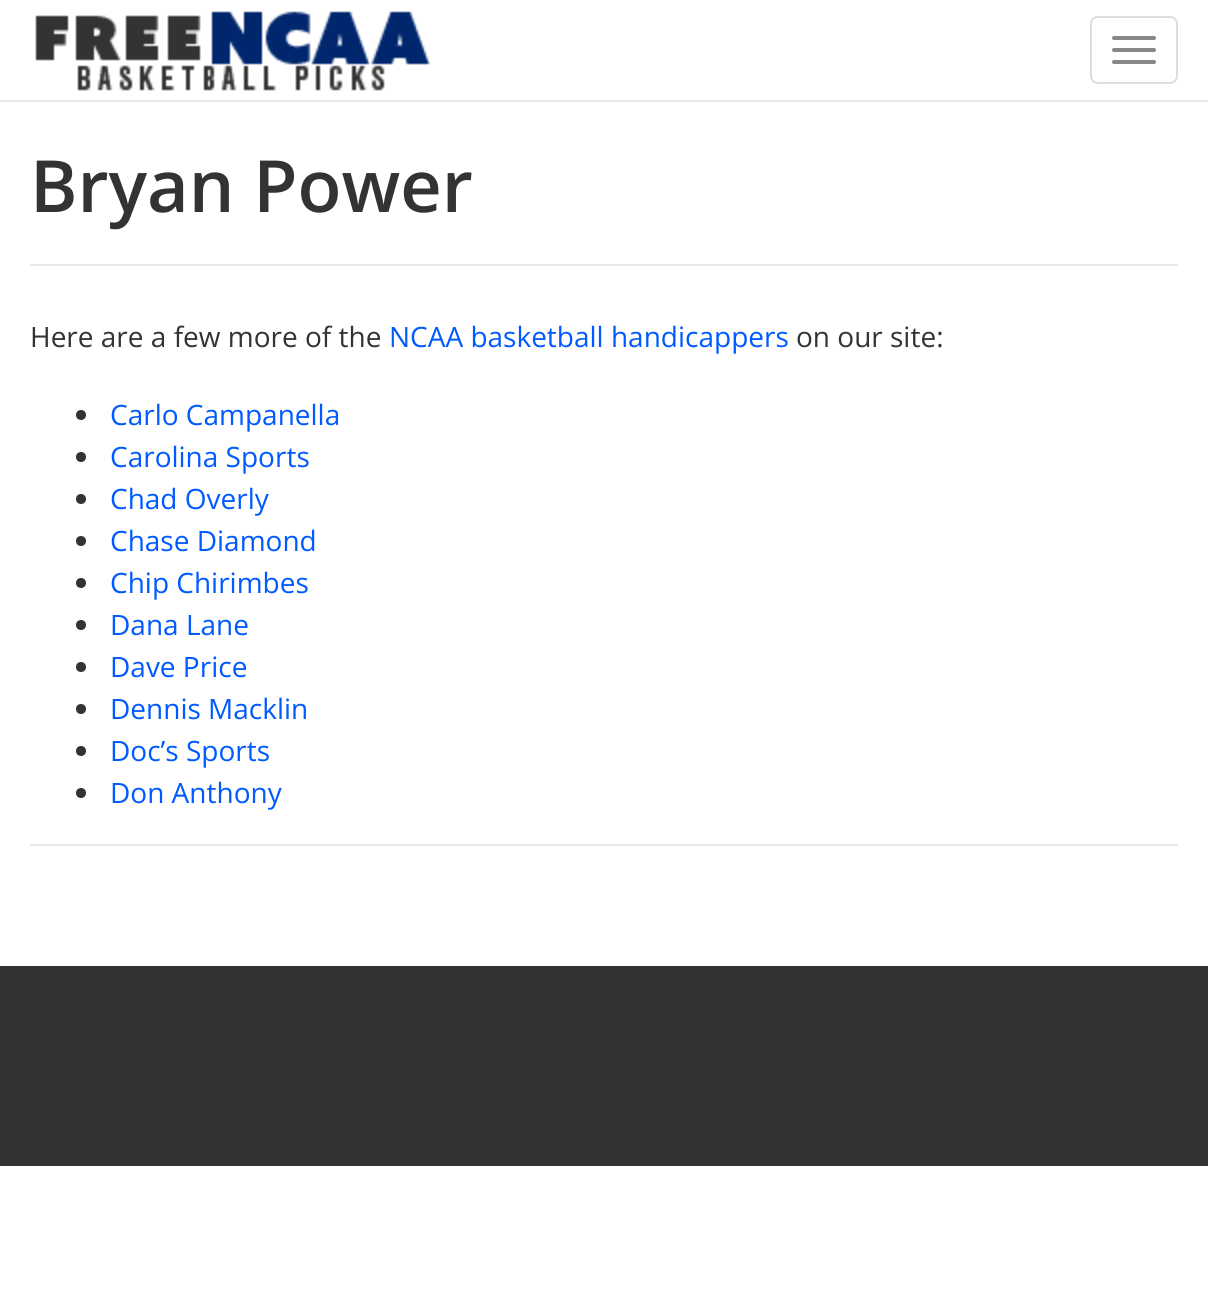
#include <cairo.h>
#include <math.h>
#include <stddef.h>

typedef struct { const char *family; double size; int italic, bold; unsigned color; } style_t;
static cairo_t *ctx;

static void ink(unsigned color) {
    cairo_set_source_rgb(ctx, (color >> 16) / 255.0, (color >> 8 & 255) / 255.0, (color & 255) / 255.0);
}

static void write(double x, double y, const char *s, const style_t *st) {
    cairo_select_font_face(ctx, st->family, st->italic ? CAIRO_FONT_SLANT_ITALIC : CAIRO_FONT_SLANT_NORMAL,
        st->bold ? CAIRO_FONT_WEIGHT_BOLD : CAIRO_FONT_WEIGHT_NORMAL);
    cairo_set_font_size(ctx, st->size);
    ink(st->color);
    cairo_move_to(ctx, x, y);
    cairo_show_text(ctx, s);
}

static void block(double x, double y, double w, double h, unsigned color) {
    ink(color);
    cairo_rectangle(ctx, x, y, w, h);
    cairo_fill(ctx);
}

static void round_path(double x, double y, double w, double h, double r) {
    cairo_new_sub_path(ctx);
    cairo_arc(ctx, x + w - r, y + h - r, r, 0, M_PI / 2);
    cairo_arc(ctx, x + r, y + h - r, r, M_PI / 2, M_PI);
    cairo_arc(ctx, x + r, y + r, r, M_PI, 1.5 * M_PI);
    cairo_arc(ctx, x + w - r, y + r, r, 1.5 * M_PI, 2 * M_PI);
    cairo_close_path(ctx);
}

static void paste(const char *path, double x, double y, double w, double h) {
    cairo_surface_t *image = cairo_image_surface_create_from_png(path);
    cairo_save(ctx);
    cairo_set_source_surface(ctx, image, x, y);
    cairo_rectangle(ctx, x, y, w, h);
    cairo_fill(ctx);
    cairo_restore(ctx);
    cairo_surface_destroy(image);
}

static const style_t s1 = {"Open Sans SemiBold", 72, 0, 0, 0x333333};
static const style_t s2 = {"Open Sans", 28, 0, 0, 0x333333};
static const style_t s3 = {"Open Sans", 28, 0, 0, 0x005aff};

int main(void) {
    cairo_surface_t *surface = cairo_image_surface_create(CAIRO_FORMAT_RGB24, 1208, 1292);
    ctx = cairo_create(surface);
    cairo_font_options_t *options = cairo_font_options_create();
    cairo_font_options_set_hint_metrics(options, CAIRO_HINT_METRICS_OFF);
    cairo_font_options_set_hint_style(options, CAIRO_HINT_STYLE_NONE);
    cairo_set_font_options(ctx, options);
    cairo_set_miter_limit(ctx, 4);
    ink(0xffffff);
    cairo_paint(ctx);
    block(0, 100, 1208, 2, 0xe7e7e7);
    paste("pic1.png", 35, 11, 395, 80);
    round_path(1091, 17, 86, 66, 7);
    ink(0xdddddd);
    cairo_stroke(ctx);
    ink(0x888888);
    round_path(1112, 36, 44, 4, 2);
    cairo_fill(ctx);
    round_path(1112, 48, 44, 4, 2);
    cairo_fill(ctx);
    round_path(1112, 60, 44, 4, 2);
    cairo_fill(ctx);
    block(30, 264, 1148, 2, 0xe7e7e7);
    write(30, 212, "Bryan Power", &s1);
    block(30, 844, 1148, 2, 0xe7e7e7);
    write(30, 347, "Here are a few more of the", &s2);
    write(389, 347, "NCAA basketball handicappers", &s3);
    write(796, 347, "on our site:", &s2);
    cairo_new_path(ctx);
    cairo_arc(ctx, 81, 415, 5, 0, 2 * M_PI);
    cairo_fill(ctx);
    write(110, 425, "Carlo Campanella", &s3);
    ink(0x333333);
    cairo_new_path(ctx);
    cairo_arc(ctx, 81, 457, 5, 0, 2 * M_PI);
    cairo_fill(ctx);
    write(110, 467, "Carolina Sports", &s3);
    ink(0x333333);
    cairo_new_path(ctx);
    cairo_arc(ctx, 81, 499, 5, 0, 2 * M_PI);
    cairo_fill(ctx);
    write(110, 509, "Chad Overly", &s3);
    ink(0x333333);
    cairo_new_path(ctx);
    cairo_arc(ctx, 81, 541, 5, 0, 2 * M_PI);
    cairo_fill(ctx);
    write(110, 551, "Chase Diamond", &s3);
    ink(0x333333);
    cairo_new_path(ctx);
    cairo_arc(ctx, 81, 583, 5, 0, 2 * M_PI);
    cairo_fill(ctx);
    write(110, 593, "Chip Chirimbes", &s3);
    ink(0x333333);
    cairo_new_path(ctx);
    cairo_arc(ctx, 81, 625, 5, 0, 2 * M_PI);
    cairo_fill(ctx);
    write(110, 635, "Dana Lane", &s3);
    ink(0x333333);
    cairo_new_path(ctx);
    cairo_arc(ctx, 81, 667, 5, 0, 2 * M_PI);
    cairo_fill(ctx);
    write(110, 677, "Dave Price", &s3);
    ink(0x333333);
    cairo_new_path(ctx);
    cairo_arc(ctx, 81, 709, 5, 0, 2 * M_PI);
    cairo_fill(ctx);
    write(110, 719, "Dennis Macklin", &s3);
    ink(0x333333);
    cairo_new_path(ctx);
    cairo_arc(ctx, 81, 751, 5, 0, 2 * M_PI);
    cairo_fill(ctx);
    write(110, 761, "Doc’s Sports", &s3);
    ink(0x333333);
    cairo_new_path(ctx);
    cairo_arc(ctx, 81, 793, 5, 0, 2 * M_PI);
    cairo_fill(ctx);
    write(110, 803, "Don Anthony", &s3);
    block(0, 966, 1208, 200, 0x333333);
    cairo_surface_write_to_png(surface, "screenshot.png");
    cairo_font_options_destroy(options);
    cairo_destroy(ctx);
    cairo_surface_destroy(surface);
    return 0;
}
